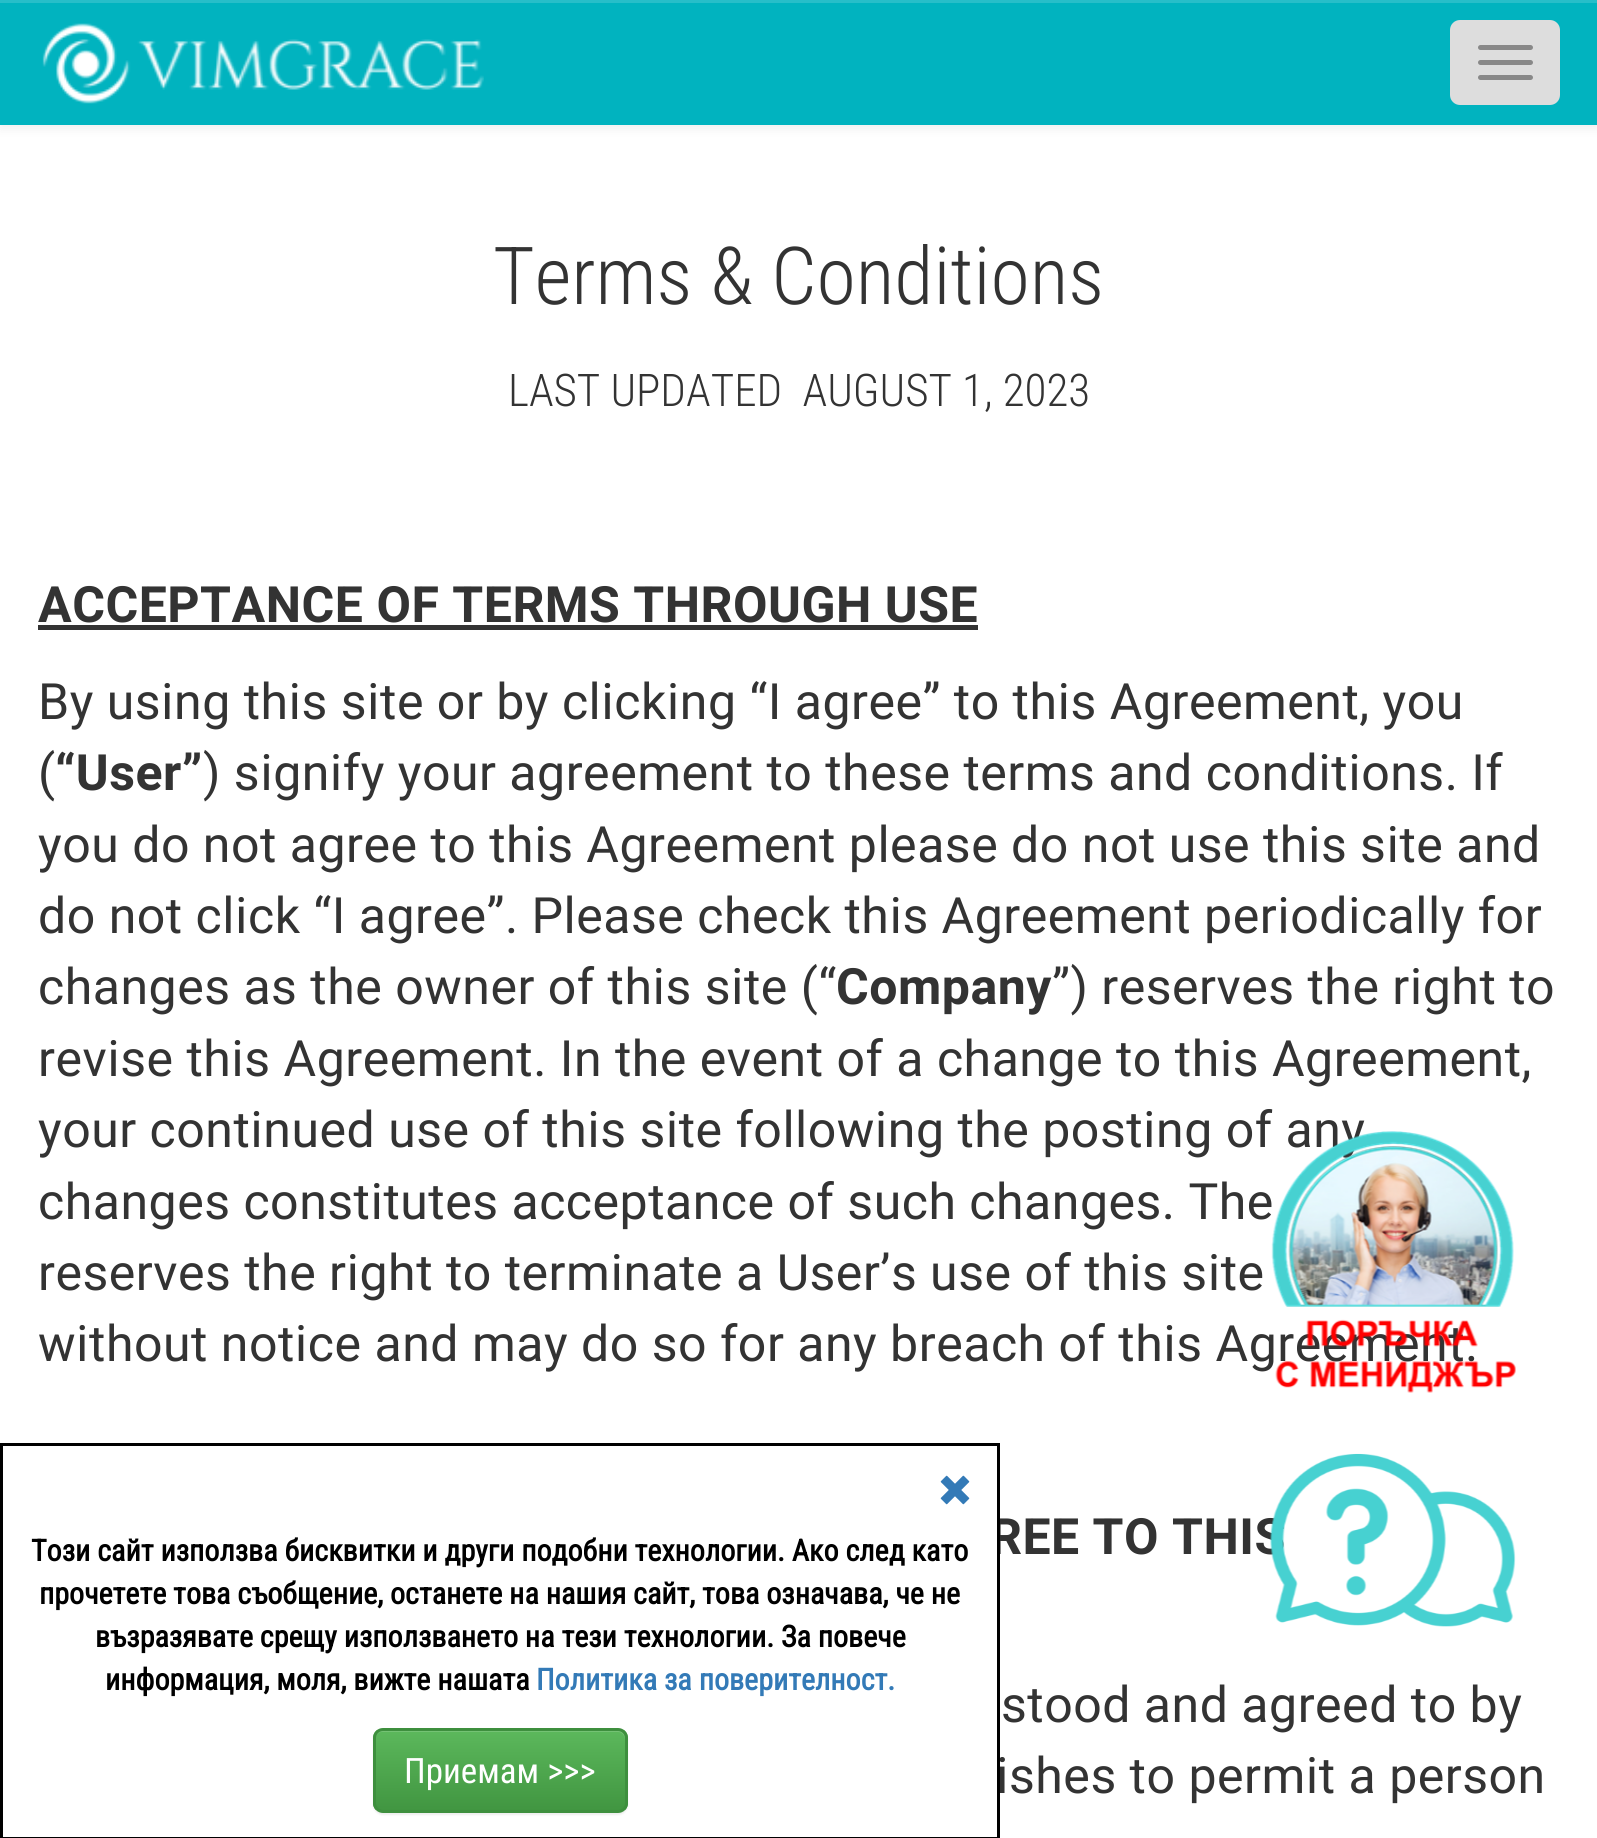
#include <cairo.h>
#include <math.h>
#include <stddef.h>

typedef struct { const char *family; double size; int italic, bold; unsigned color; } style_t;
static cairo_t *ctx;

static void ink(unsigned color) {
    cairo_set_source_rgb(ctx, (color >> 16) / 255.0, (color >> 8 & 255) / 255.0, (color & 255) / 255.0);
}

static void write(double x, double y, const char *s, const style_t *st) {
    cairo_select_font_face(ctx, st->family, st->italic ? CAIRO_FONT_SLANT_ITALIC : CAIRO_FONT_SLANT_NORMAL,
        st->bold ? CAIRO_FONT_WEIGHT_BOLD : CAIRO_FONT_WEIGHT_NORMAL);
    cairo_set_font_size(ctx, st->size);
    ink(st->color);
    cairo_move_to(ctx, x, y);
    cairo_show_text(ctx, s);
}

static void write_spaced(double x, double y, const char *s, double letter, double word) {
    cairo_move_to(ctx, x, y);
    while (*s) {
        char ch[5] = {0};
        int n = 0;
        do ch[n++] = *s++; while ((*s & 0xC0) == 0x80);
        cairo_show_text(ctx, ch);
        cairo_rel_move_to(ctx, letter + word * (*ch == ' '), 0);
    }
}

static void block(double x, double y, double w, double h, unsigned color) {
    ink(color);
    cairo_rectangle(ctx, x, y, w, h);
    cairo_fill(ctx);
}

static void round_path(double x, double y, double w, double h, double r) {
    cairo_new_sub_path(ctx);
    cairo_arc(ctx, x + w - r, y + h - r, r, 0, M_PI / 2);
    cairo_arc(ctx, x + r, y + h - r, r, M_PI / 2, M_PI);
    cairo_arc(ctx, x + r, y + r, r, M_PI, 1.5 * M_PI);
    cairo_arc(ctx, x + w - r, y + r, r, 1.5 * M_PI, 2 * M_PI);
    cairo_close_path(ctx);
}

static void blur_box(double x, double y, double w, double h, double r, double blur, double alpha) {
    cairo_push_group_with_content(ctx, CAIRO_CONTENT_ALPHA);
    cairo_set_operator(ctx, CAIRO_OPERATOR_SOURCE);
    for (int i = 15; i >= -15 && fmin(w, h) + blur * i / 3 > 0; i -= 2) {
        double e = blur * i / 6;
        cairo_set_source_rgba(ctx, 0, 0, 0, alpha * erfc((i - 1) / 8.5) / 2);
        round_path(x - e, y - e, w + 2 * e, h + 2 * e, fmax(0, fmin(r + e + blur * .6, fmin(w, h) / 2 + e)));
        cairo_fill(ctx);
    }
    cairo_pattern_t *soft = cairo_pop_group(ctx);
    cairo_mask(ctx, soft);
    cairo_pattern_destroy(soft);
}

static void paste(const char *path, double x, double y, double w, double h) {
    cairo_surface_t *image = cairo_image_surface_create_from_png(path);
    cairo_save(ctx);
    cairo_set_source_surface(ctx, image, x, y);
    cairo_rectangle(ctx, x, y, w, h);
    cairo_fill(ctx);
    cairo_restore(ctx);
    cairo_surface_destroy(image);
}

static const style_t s1 = {"Roboto Condensed Light", 80, 0, 0, 0x333333};
static const style_t s2 = {"Roboto Condensed Light", 45, 0, 0, 0x333333};
static const style_t s3 = {"Roboto Condensed", 30, 0, 1, 0x000000};
static const style_t s4 = {"Roboto Condensed", 30, 0, 1, 0x337ab7};
static const style_t s5 = {"Roboto Condensed", 35, 0, 0, 0xffffff};

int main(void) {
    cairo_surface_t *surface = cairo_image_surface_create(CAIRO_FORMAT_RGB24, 1597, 1838);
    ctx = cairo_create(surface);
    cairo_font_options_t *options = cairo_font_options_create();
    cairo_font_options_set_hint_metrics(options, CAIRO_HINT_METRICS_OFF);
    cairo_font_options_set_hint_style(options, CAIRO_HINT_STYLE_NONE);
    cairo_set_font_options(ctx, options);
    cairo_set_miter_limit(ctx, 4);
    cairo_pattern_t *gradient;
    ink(0xffffff);
    cairo_paint(ctx);
    ink(0x000000);
    blur_box(0, 3, 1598, 125, 0, 6, 0.07);
    block(0, 3, 1597, 122, 0x01b3bf);
    block(0, 0, 1597, 3, 0x27bec9);
    paste("pic1.png", 42, 23, 442, 81);
    ink(0xdddddd);
    round_path(1451.5, 21.5, 107, 82, 8.5);
    cairo_fill_preserve(ctx);
    cairo_set_line_width(ctx, 3);
    cairo_stroke(ctx);
    ink(0x888888);
    round_path(1478, 45, 55, 5, 2.5);
    cairo_fill(ctx);
    round_path(1478, 60, 55, 5, 2.5);
    cairo_fill(ctx);
    round_path(1478, 75, 55, 5, 2.5);
    cairo_fill(ctx);
    write(493, 304, "Terms & Conditions", &s1);
    write(508, 406, "LAST UPDATED  AUGUST 1, 2023", &s2);
    cairo_select_font_face(ctx, "Heebo", CAIRO_FONT_SLANT_NORMAL, CAIRO_FONT_WEIGHT_BOLD);
    cairo_set_font_size(ctx, 50);
    write_spaced(38, 622, "ACCEPTANCE OF TERMS THROUGH USE", 0.5, 0);
    block(38, 625, 940, 5, 0x333333);
    cairo_select_font_face(ctx, "Heebo", CAIRO_FONT_SLANT_NORMAL, CAIRO_FONT_WEIGHT_NORMAL);
    write_spaced(38, 719, "By using this site or by clicking “I agree” to this Agreement, you", 0.5, 0);
    write_spaced(38, 790, "(", 0.5, 0);
    cairo_select_font_face(ctx, "Heebo", CAIRO_FONT_SLANT_NORMAL, CAIRO_FONT_WEIGHT_BOLD);
    write_spaced(55, 790, "“User”", 0.5, 0);
    cairo_select_font_face(ctx, "Heebo", CAIRO_FONT_SLANT_NORMAL, CAIRO_FONT_WEIGHT_NORMAL);
    write_spaced(203, 790, ") signify your agreement to these terms and conditions. If", 0.5, 0);
    write_spaced(38, 862, "you do not agree to this Agreement please do not use this site and", 0.5, 0);
    write_spaced(38, 933, "do not click “I agree”. Please check this Agreement periodically for", 0.5, 0);
    write_spaced(38, 1004, "changes as the owner of this site (“", 0.5, 0);
    cairo_select_font_face(ctx, "Heebo", CAIRO_FONT_SLANT_NORMAL, CAIRO_FONT_WEIGHT_BOLD);
    write_spaced(836, 1004, "Company", 0.5, 0);
    cairo_select_font_face(ctx, "Heebo", CAIRO_FONT_SLANT_NORMAL, CAIRO_FONT_WEIGHT_NORMAL);
    write_spaced(1052, 1004, "”) reserves the right to", 0.5, 0);
    write_spaced(38, 1076, "revise this Agreement. In the event of a change to this Agreement,", 0.5, 0);
    write_spaced(38, 1147, "your continued use of this site following the posting of any", 0.5, 0);
    write_spaced(38, 1219, "changes constitutes acceptance of such changes. The", 0.5, 0);
    write_spaced(38, 1290, "reserves the right to terminate a User’s use of this site", 0.5, 0);
    write_spaced(38, 1361, "without notice and may do so for any breach of this Agreement.", 0.5, 0);
    cairo_select_font_face(ctx, "Heebo", CAIRO_FONT_SLANT_NORMAL, CAIRO_FONT_WEIGHT_BOLD);
    write_spaced(990, 1554, "REE TO THIS", 0.5, 0);
    cairo_select_font_face(ctx, "Heebo", CAIRO_FONT_SLANT_NORMAL, CAIRO_FONT_WEIGHT_NORMAL);
    write_spaced(1001, 1722, "stood and agreed to by", 0.5, 0);
    write_spaced(996, 1793, "ishes to permit a person", 0.5, 0);
    paste("pic2.png", 1271, 1131, 245, 262);
    paste("pic3.png", 1270, 1453, 246, 174);
    block(992, 1518, 5, 36, 0xffffff);
    cairo_rectangle(ctx, 1.5, 1444.5, 997, 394);
    ink(0x000000);
    cairo_stroke(ctx);
    paste("pic4.png", 940, 1475, 30, 30);
    write(31, 1561, "Този сайт използва бисквитки и други подобни технологии. Ако след като", &s3);
    write(39, 1604, "прочетете това съобщение, останете на нашия сайт, това означава, че не", &s3);
    write(95, 1647, "възразявате срещу използването на тези технологии. За повече", &s3);
    write(105, 1690, "информация, моля, вижте нашата", &s3);
    write(536, 1690, "Политика за поверителност.", &s4);
    ink(0x000000);
    blur_box(373, 1730, 255, 85, 10, 1, 0.07);
    cairo_save(ctx);
    round_path(373, 1728, 255, 85, 10);
    cairo_clip(ctx);
    gradient = cairo_pattern_create_linear(500, 1730, 500, 1810);
    cairo_pattern_add_color_stop_rgba(gradient, 0, 0.361, 0.722, 0.361, 1);
    cairo_pattern_add_color_stop_rgba(gradient, 1, 0.255, 0.588, 0.255, 1);
    cairo_set_source(ctx, gradient);
    cairo_pattern_destroy(gradient);
    cairo_rectangle(ctx, 373, 1730, 255, 80);
    cairo_fill(ctx);
    cairo_restore(ctx);
    cairo_set_source_rgba(ctx, 1, 1, 1, 0.15);
    cairo_new_path(ctx);
    cairo_move_to(ctx, 382, 1732);
    cairo_line_to(ctx, 618, 1732);
    cairo_curve_to(ctx, 622, 1732, 625, 1736, 625, 1740);
    cairo_line_to(ctx, 625, 1738);
    cairo_curve_to(ctx, 625, 1734, 621, 1730, 617, 1730);
    cairo_line_to(ctx, 383, 1730);
    cairo_curve_to(ctx, 379, 1730, 375, 1734, 375, 1738);
    cairo_line_to(ctx, 375, 1740);
    cairo_curve_to(ctx, 375, 1736, 378, 1732, 382, 1732);
    cairo_close_path(ctx);
    cairo_fill(ctx);
    round_path(374.5, 1729.5, 252, 82, 8.5);
    ink(0x3e8f3e);
    cairo_stroke(ctx);
    write(404, 1783, "Приемам >>>", &s5);
    cairo_surface_write_to_png(surface, "screenshot.png");
    cairo_font_options_destroy(options);
    cairo_destroy(ctx);
    cairo_surface_destroy(surface);
    return 0;
}
